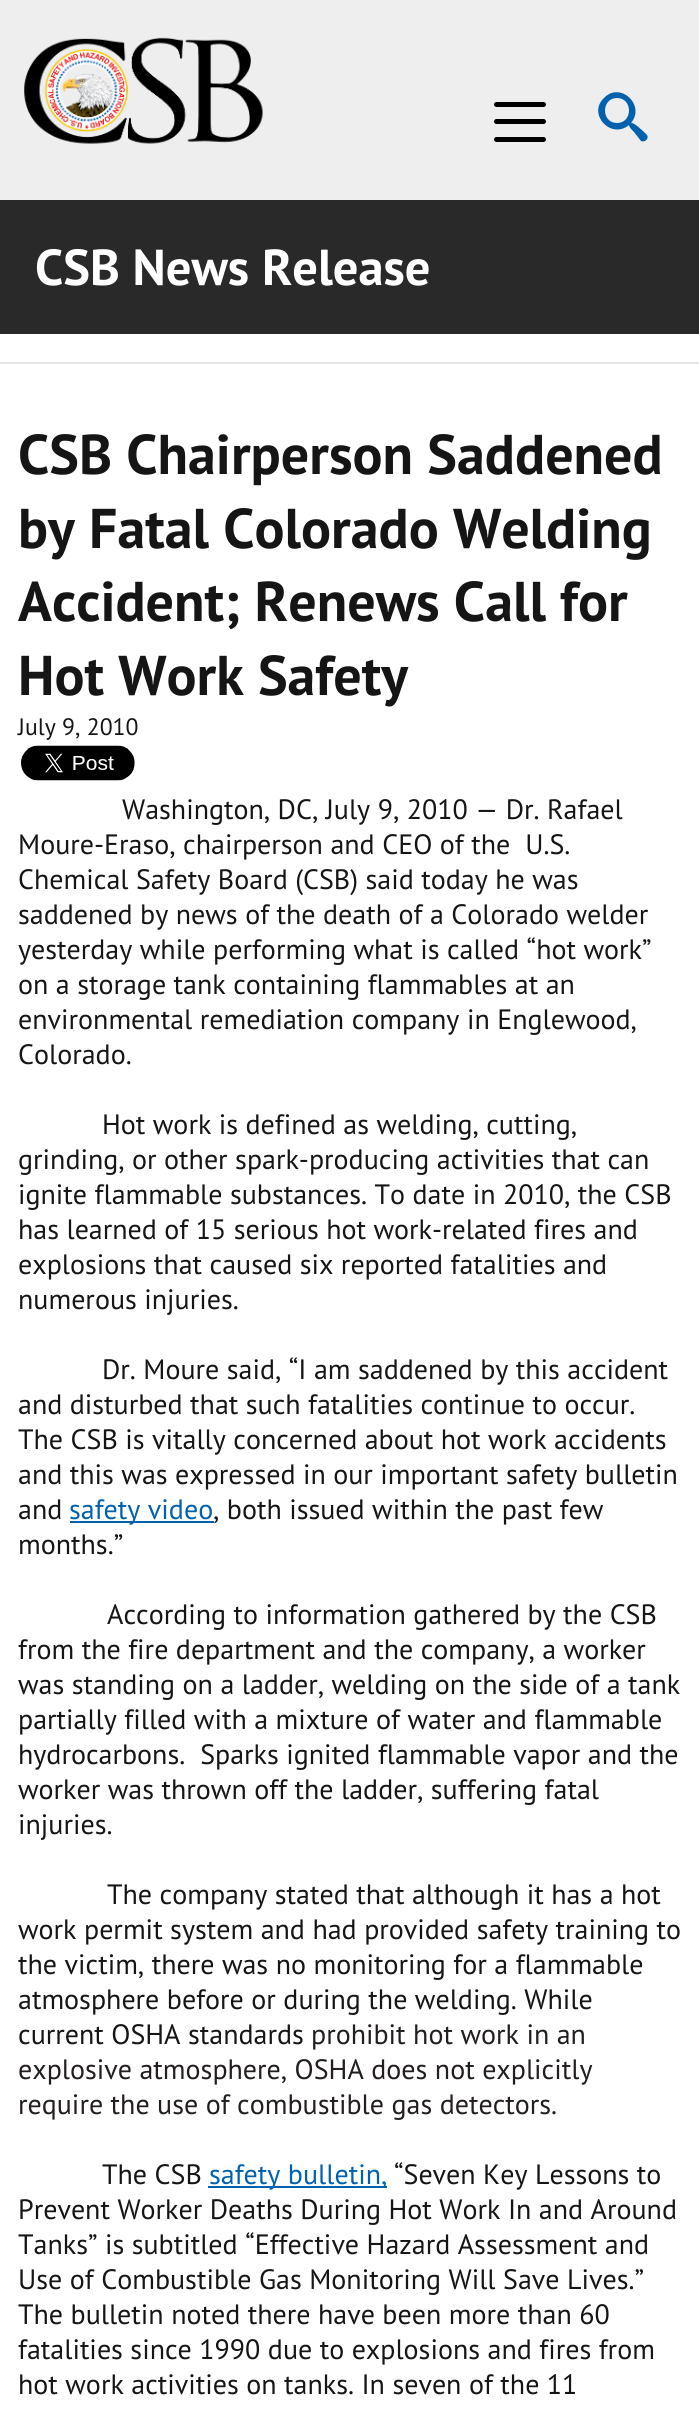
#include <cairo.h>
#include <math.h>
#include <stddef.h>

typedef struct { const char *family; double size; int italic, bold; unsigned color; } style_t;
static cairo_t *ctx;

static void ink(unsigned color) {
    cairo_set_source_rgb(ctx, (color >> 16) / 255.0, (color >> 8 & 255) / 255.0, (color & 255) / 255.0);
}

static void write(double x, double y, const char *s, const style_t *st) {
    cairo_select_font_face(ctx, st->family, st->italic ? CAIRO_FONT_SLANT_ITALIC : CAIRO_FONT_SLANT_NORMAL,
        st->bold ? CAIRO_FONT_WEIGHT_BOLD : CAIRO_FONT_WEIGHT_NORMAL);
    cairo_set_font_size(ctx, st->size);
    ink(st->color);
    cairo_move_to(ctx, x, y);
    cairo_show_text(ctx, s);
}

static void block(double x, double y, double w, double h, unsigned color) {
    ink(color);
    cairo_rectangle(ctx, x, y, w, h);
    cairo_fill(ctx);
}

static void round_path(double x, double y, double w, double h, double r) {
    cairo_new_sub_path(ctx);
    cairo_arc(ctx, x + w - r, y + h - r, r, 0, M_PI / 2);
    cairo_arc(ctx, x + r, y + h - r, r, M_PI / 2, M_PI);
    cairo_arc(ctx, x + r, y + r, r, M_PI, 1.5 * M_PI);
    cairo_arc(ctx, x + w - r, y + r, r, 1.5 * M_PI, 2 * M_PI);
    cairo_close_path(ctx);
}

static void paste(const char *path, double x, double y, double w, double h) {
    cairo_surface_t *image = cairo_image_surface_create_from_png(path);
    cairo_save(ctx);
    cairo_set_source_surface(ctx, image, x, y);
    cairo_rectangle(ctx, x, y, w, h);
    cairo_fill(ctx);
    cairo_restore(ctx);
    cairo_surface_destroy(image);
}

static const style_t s1 = {"PT Sans", 50.5, 0, 1, 0xffffff};
static const style_t s2 = {"PT Sans", 56, 0, 1, 0x151515};
static const style_t s3 = {"PT Sans", 23.75, 0, 0, 0x151515};
static const style_t s4 = {"PT Sans", 28, 0, 0, 0x151515};
static const style_t s5 = {"PT Sans", 28, 0, 0, 0x0061af};
static const style_t s6 = {"PT Sans", 28, 0, 0, 0x221e1f};

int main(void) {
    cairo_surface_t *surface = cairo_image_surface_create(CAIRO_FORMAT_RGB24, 699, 2411);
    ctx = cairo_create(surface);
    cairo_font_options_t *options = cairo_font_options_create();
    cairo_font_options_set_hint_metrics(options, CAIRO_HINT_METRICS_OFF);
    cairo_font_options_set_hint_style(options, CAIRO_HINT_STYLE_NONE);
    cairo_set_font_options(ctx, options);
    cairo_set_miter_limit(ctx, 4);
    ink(0xffffff);
    cairo_paint(ctx);
    block(0, 0, 699, 200, 0xeeeeee);
    paste("pic1.png", 24, 37, 239, 107);
    ink(0x000000);
    round_path(494, 102, 52, 5, 2.5);
    cairo_fill(ctx);
    round_path(494, 119, 52, 5, 2.5);
    cairo_fill(ctx);
    round_path(494, 137, 52, 5, 2.5);
    cairo_fill(ctx);
    ink(0x0061af);
    cairo_new_path(ctx);
    cairo_move_to(ctx, 646, 134);
    cairo_curve_to(ctx, 644, 132, 634, 122, 631, 123);
    cairo_curve_to(ctx, 646, 105, 620, 81, 604, 98);
    cairo_curve_to(ctx, 587, 114, 611, 140, 629, 125);
    cairo_curve_to(ctx, 629, 127, 632, 130, 634, 132);
    cairo_line_to(ctx, 641, 141);
    cairo_curve_to(ctx, 646, 143, 650, 137, 646, 134);
    cairo_close_path(ctx);
    cairo_move_to(ctx, 617, 123);
    cairo_curve_to(ctx, 601, 123, 601, 98, 617, 98);
    cairo_curve_to(ctx, 633, 98, 633, 123, 617, 123);
    cairo_close_path(ctx);
    cairo_fill(ctx);
    block(0, 200, 699, 134, 0x292929);
    write(35, 285, "CSB News Release", &s1);
    block(0, 362, 699, 2, 0xe5e5e5);
    write(18, 474, "CSB Chairperson Saddened", &s2);
    write(18, 548, "by Fatal Colorado Welding", &s2);
    write(18, 621, "Accident; Renews Call for", &s2);
    write(18, 695, "Hot Work Safety", &s2);
    write(18, 735, "July 9, 2010", &s3);
    paste("pic2.png", 21, 745, 114, 36);
    write(122, 819, "Washington, DC, July 9, 2010 — Dr. Rafael", &s4);
    write(18, 854, "Moure-Eraso, chairperson and CEO of the  U.S.", &s4);
    write(18, 889, "Chemical Safety Board (CSB) said today he was", &s4);
    write(18, 924, "saddened by news of the death of a Colorado welder", &s4);
    write(18, 959, "yesterday while performing what is called “hot work”", &s4);
    write(18, 994, "on a storage tank containing flammables at an", &s4);
    write(18, 1029, "environmental remediation company in Englewood,", &s4);
    write(18, 1064, "Colorado.", &s4);
    write(102, 1134, "Hot work is defined as welding, cutting,", &s4);
    write(18, 1169, "grinding, or other spark-producing activities that can", &s4);
    write(18, 1204, "ignite flammable substances. To date in 2010, the CSB", &s4);
    write(18, 1239, "has learned of 15 serious hot work-related fires and", &s4);
    write(18, 1274, "explosions that caused six reported fatalities and", &s4);
    write(18, 1309, "numerous injuries.", &s4);
    write(102, 1379, "Dr. Moure said, “I am saddened by this accident", &s4);
    write(18, 1414, "and disturbed that such fatalities continue to occur.", &s4);
    write(18, 1449, "The CSB is vitally concerned about hot work accidents", &s4);
    write(18, 1484, "and this was expressed in our important safety bulletin", &s4);
    write(18, 1519, "and", &s4);
    block(70, 1521, 144, 2, 0x0061af);
    write(69, 1519, "safety video", &s5);
    write(213, 1519, ", both issued within the past few", &s4);
    write(18, 1554, "months.”", &s4);
    write(107, 1624, "According to information gathered by the CSB", &s4);
    write(18, 1659, "from the fire department and the company, a worker", &s4);
    write(18, 1694, "was standing on a ladder, welding on the side of a tank", &s4);
    write(18, 1729, "partially filled with a mixture of water and flammable", &s4);
    write(18, 1764, "hydrocarbons.  Sparks ignited flammable vapor and the", &s4);
    write(18, 1799, "worker was thrown off the ladder, suffering fatal", &s4);
    write(18, 1834, "injuries.", &s4);
    write(107, 1904, "The company stated that although it has a hot", &s4);
    write(18, 1939, "work permit system and had provided safety training to", &s4);
    write(18, 1974, "the victim, there was no monitoring for a flammable", &s4);
    write(18, 2009, "atmosphere before or during the welding. While", &s4);
    write(18, 2044, "current OSHA standards", &s4);
    write(311, 2044, "prohibit hot work in an", &s6);
    write(18, 2079, "explosive atmosphere, OSHA does not explicitly", &s6);
    write(18, 2114, "require the use of combustible gas detectors.", &s6);
    write(102, 2184, "The CSB", &s4);
    block(208, 2186, 179, 2, 0x0061af);
    write(209, 2184, "safety bulletin,", &s5);
    write(394, 2184, "“Seven Key Lessons to", &s4);
    write(18, 2219, "Prevent Worker Deaths During Hot Work In and Around", &s4);
    write(18, 2254, "Tanks” is subtitled “Effective Hazard Assessment and", &s4);
    write(18, 2289, "Use of Combustible Gas Monitoring Will Save Lives.”", &s4);
    write(18, 2324, "The bulletin noted there have been more than 60", &s4);
    write(18, 2359, "fatalities since 1990 due to explosions and fires from", &s4);
    write(18, 2394, "hot work activities on tanks. In seven of the 11", &s4);
    cairo_surface_write_to_png(surface, "screenshot.png");
    cairo_font_options_destroy(options);
    cairo_destroy(ctx);
    cairo_surface_destroy(surface);
    return 0;
}
